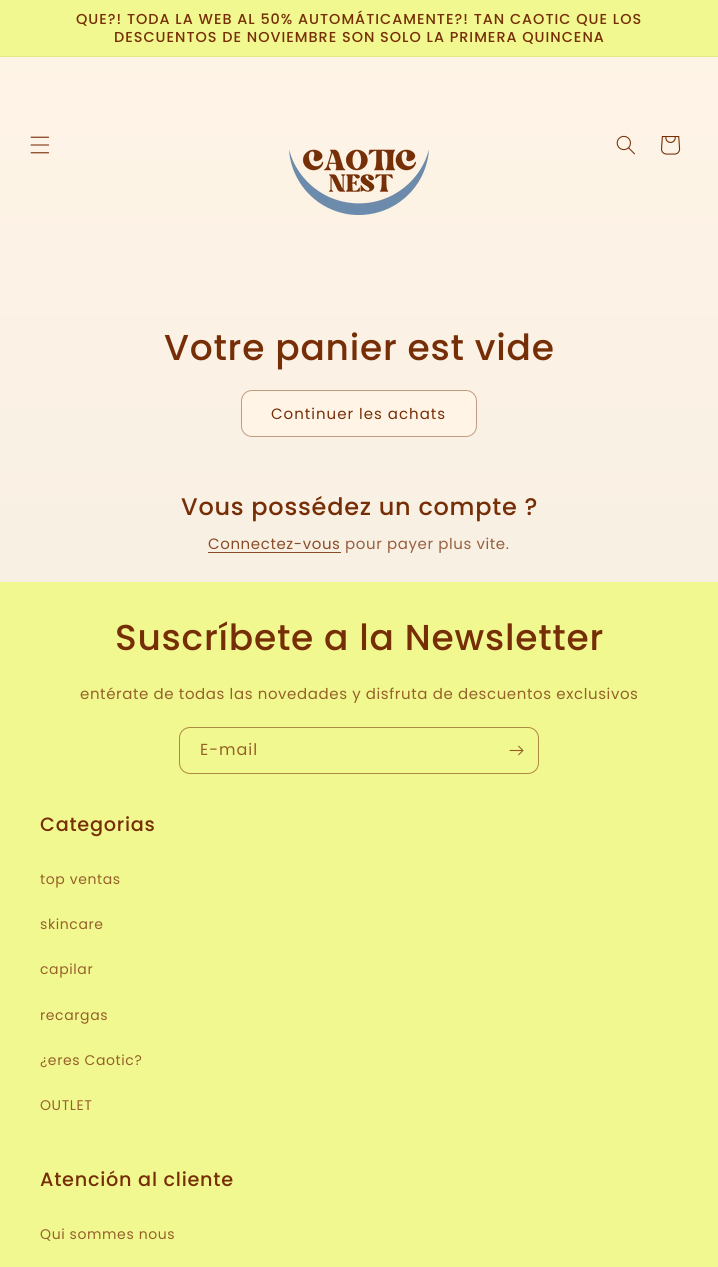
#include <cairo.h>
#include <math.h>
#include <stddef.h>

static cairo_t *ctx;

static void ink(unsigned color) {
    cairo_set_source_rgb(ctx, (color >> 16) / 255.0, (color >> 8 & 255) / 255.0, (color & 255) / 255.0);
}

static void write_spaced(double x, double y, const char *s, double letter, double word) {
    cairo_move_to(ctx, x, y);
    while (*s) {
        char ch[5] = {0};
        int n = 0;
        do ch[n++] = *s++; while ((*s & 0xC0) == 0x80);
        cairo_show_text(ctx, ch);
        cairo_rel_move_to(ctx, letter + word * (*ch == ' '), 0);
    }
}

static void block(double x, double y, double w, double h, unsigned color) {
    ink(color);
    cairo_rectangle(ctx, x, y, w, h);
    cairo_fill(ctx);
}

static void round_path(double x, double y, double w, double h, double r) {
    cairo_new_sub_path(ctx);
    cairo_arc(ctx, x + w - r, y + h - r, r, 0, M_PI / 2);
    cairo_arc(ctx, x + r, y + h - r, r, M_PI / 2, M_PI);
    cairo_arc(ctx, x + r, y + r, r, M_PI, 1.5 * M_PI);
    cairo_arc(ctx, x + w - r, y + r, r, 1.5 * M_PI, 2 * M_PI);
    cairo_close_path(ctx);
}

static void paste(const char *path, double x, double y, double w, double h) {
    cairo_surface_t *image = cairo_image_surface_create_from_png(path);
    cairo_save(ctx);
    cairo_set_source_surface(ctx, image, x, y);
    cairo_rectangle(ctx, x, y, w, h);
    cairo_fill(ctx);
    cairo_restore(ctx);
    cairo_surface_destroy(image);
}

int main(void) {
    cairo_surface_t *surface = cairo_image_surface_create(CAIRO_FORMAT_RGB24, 718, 1267);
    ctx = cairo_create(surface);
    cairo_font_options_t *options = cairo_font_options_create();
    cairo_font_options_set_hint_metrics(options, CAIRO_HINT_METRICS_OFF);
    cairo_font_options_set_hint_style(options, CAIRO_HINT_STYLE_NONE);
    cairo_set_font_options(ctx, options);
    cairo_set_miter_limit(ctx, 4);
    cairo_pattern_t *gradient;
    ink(0xffffff);
    cairo_paint(ctx);
    gradient = cairo_pattern_create_linear(359, 0, 359, 1267);
    cairo_pattern_add_color_stop_rgba(gradient, 0, 1, 0.957, 0.902, 1);
    cairo_pattern_add_color_stop_rgba(gradient, 1, 0.945, 0.922, 0.886, 1);
    cairo_set_source(ctx, gradient);
    cairo_pattern_destroy(gradient);
    cairo_rectangle(ctx, 0, 57, 718, 525);
    cairo_fill(ctx);
    block(0, 0, 718, 56, 0xf1f890);
    block(0, 56, 718, 1, 0xe7e885);
    cairo_select_font_face(ctx, "Poppins Medium", CAIRO_FONT_SLANT_NORMAL, CAIRO_FONT_WEIGHT_NORMAL);
    cairo_set_font_size(ctx, 14.4);
    ink(0x762e06);
    write_spaced(76, 24, "QUE?! TODA LA WEB AL 50% AUTOMÁTICAMENTE?! TAN CAOTIC QUE LOS", 1, 0);
    write_spaced(114, 42, "DESCUENTOS DE NOVIEMBRE SON SOLO LA PRIMERA QUINCENA", 1, 0);
    paste("pic1.png", 30, 136, 20, 18);
    paste("pic2.png", 616, 135, 19, 20);
    paste("pic3.png", 661, 136, 20, 19);
    paste("pic4.png", 289, 149, 140, 66);
    cairo_set_font_size(ctx, 36);
    write_spaced(164, 360, "Votre panier est vide", 0.75, 0);
    ink(0xfff4e6);
    round_path(241, 390, 236, 47, 11);
    cairo_fill(ctx);
    round_path(241.5, 390.5, 235, 46, 10.5);
    ink(0xc19b81);
    cairo_set_line_width(ctx, 1);
    cairo_stroke(ctx);
    cairo_select_font_face(ctx, "Poppins", CAIRO_FONT_SLANT_NORMAL, CAIRO_FONT_WEIGHT_NORMAL);
    cairo_set_font_size(ctx, 15);
    ink(0x762e06);
    write_spaced(271, 419, "Continuer les achats", 1, 0);
    cairo_select_font_face(ctx, "Poppins Medium", CAIRO_FONT_SLANT_NORMAL, CAIRO_FONT_WEIGHT_NORMAL);
    cairo_set_font_size(ctx, 24);
    write_spaced(181, 515, "Vous possédez un compte ?", 0.75, 0);
    cairo_select_font_face(ctx, "Poppins", CAIRO_FONT_SLANT_NORMAL, CAIRO_FONT_WEIGHT_NORMAL);
    cairo_set_font_size(ctx, 15);
    ink(0x8a4b27);
    write_spaced(208, 549, "Connectez-vous", 0.6, 0);
    block(208, 552, 133, 1, 0x8a4b27);
    ink(0x975f3e);
    write_spaced(345, 549, "pour payer plus vite.", 0.6, 0);
    block(0, 582, 718, 685, 0xf1f890);
    cairo_select_font_face(ctx, "Poppins Medium", CAIRO_FONT_SLANT_NORMAL, CAIRO_FONT_WEIGHT_NORMAL);
    cairo_set_font_size(ctx, 36);
    ink(0x762e06);
    write_spaced(115, 650, "Suscríbete a la Newsletter", 0.75, 0);
    cairo_select_font_face(ctx, "Poppins", CAIRO_FONT_SLANT_NORMAL, CAIRO_FONT_WEIGHT_NORMAL);
    cairo_set_font_size(ctx, 15);
    ink(0x956129);
    write_spaced(80, 699, "entérate de todas las novedades y disfruta de descuentos exclusivos", 0.6, 0);
    round_path(179.5, 727.5, 359, 46, 10.5);
    ink(0xad8944);
    cairo_stroke(ctx);
    cairo_set_font_size(ctx, 16);
    ink(0x956129);
    write_spaced(200, 755, "E-mail", 1, 0);
    paste("pic5.png", 509, 745, 15, 11);
    cairo_select_font_face(ctx, "Poppins Medium", CAIRO_FONT_SLANT_NORMAL, CAIRO_FONT_WEIGHT_NORMAL);
    cairo_set_font_size(ctx, 19.25);
    ink(0x762e06);
    write_spaced(40, 831, "Categorias", 0.75, 0);
    cairo_select_font_face(ctx, "Poppins", CAIRO_FONT_SLANT_NORMAL, CAIRO_FONT_WEIGHT_NORMAL);
    cairo_set_font_size(ctx, 14);
    ink(0x956129);
    write_spaced(40, 884, "top ventas", 0.6, 0);
    write_spaced(40, 929, "skincare", 0.6, 0);
    write_spaced(40, 974, "capilar", 0.6, 0);
    write_spaced(40, 1020, "recargas", 0.6, 0);
    write_spaced(40, 1065, "¿eres Caotic?", 0.6, 0);
    write_spaced(40, 1110, "OUTLET", 0.6, 0);
    cairo_select_font_face(ctx, "Poppins Medium", CAIRO_FONT_SLANT_NORMAL, CAIRO_FONT_WEIGHT_NORMAL);
    cairo_set_font_size(ctx, 19.25);
    ink(0x762e06);
    write_spaced(40, 1186, "Atención al cliente", 0.75, 0);
    cairo_select_font_face(ctx, "Poppins", CAIRO_FONT_SLANT_NORMAL, CAIRO_FONT_WEIGHT_NORMAL);
    cairo_set_font_size(ctx, 14);
    ink(0x956129);
    write_spaced(40, 1239, "Qui sommes nous", 0.6, 0);
    cairo_surface_write_to_png(surface, "screenshot.png");
    cairo_font_options_destroy(options);
    cairo_destroy(ctx);
    cairo_surface_destroy(surface);
    return 0;
}
